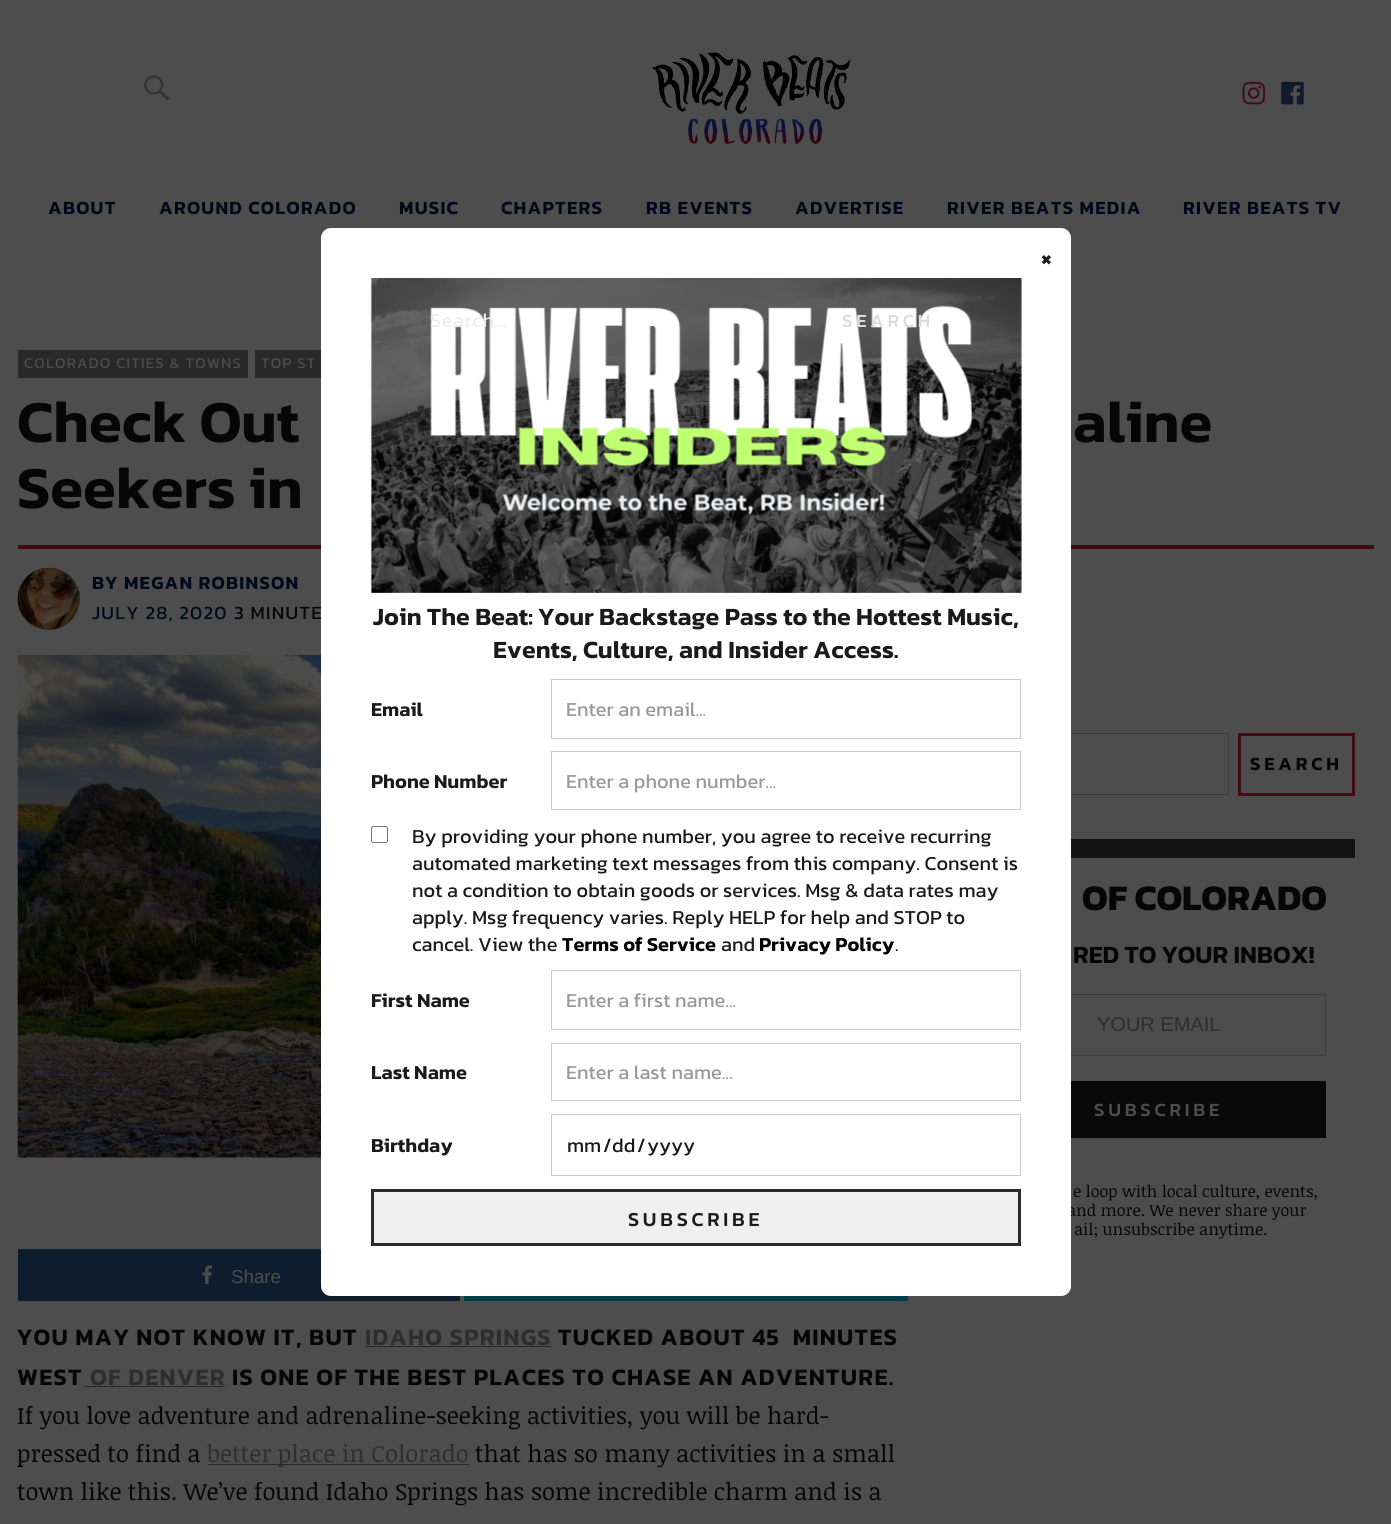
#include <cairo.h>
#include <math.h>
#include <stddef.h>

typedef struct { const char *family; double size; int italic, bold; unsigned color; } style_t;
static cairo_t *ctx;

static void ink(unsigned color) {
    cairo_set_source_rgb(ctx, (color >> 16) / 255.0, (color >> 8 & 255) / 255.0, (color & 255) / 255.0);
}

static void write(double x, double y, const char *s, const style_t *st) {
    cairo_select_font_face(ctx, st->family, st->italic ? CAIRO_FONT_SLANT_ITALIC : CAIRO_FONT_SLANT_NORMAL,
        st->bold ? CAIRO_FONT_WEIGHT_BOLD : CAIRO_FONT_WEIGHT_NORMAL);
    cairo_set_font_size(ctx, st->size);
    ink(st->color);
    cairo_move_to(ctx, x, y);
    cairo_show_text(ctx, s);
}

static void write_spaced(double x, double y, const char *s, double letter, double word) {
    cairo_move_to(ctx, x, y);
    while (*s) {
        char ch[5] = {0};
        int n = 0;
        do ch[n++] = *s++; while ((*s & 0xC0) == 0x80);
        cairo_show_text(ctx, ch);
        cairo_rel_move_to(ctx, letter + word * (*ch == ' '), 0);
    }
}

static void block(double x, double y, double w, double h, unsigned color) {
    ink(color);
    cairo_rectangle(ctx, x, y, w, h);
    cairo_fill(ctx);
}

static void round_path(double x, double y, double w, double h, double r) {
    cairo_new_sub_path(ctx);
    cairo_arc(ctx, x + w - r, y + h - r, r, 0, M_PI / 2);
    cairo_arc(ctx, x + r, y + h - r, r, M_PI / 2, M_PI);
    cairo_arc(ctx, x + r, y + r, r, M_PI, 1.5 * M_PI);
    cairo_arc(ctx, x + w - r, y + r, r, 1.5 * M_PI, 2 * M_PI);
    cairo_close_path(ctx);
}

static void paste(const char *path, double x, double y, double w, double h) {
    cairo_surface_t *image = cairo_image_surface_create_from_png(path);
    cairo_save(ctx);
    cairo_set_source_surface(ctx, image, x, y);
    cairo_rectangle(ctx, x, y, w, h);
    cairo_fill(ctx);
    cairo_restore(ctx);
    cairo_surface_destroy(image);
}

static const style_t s1 = {"Noticia Text", 16.25, 0, 0, 0x060606};
static const style_t s2 = {"Kanit SemiBold", 60, 0, 0, 0x060606};
static const style_t s3 = {"Liberation Sans", 18.75, 0, 0, 0x4d4d4d};
static const style_t s4 = {"Noticia Text", 23.75, 0, 0, 0x060606};
static const style_t s5 = {"Noticia Text", 23.75, 0, 0, 0x2e2e2e};
static const style_t s6 = {"Kanit", 36.25, 0, 1, 0x060606};
static const style_t s7 = {"Kanit SemiBold", 25, 0, 0, 0x060606};
static const style_t s8 = {"Liberation Sans", 20, 0, 0, 0x2e2e2e};
static const style_t s9 = {"Kanit", 25, 0, 1, 0x1a1a1a};
static const style_t s10 = {"Kanit SemiBold", 25, 0, 0, 0x1a1a1a};
static const style_t s11 = {"Kanit SemiBold", 20, 0, 0, 0x1a1a1a};
static const style_t s12 = {"Kanit", 20, 0, 0, 0x999999};
static const style_t s13 = {"Kanit", 20, 0, 0, 0x1a1a1a};
static const style_t s14 = {"Kanit SemiBold", 20, 0, 0, 0x000000};

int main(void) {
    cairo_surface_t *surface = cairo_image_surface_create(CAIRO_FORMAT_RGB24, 1391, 1524);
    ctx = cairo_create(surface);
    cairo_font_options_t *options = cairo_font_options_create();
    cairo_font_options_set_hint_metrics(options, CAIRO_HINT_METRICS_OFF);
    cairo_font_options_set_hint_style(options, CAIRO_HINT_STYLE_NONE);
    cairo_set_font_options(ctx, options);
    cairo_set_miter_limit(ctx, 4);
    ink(0x4d4d4d);
    cairo_paint(ctx);
    paste("pic1.png", 144, 75, 26, 26);
    paste("pic2.png", 652, 52, 198, 92);
    paste("pic3.png", 1242, 81, 23, 24);
    paste("pic4.png", 1281, 81, 23, 24);
    cairo_select_font_face(ctx, "Kanit SemiBold", CAIRO_FONT_SLANT_NORMAL, CAIRO_FONT_WEIGHT_NORMAL);
    cairo_set_font_size(ctx, 18.75);
    ink(0x00091b);
    write_spaced(48, 214, "ABOUT", 1.25, 0);
    write_spaced(159, 214, "AROUND COLORADO", 1.25, 0);
    write_spaced(399, 214, "MUSIC", 1.25, 0);
    write_spaced(501, 214, "CHAPTERS", 1.25, 0);
    write_spaced(646, 214, "RB EVENTS", 1.25, 0);
    write_spaced(795, 214, "ADVERTISE", 1.25, 0);
    write_spaced(947, 214, "RIVER BEATS MEDIA", 1.25, 0);
    write_spaced(1183, 214, "RIVER BEATS TV", 1.25, 0);
    block(18, 545, 1356, 4, 0x410b0f);
    block(18, 1249, 442, 52, 0x0e1d2e);
    cairo_rectangle(ctx, 963.5, 733.5, 265, 61);
    ink(0x3d3d3d);
    cairo_set_line_width(ctx, 1);
    cairo_stroke(ctx);
    cairo_rectangle(ctx, 990.5, 994.5, 335, 61);
    cairo_stroke(ctx);
    write(1067, 1216, "and more. We never share your", &s1);
    ink(0xffffff);
    round_path(321, 228, 750, 1068, 10);
    cairo_fill(ctx);
    paste("pic8.png", 370, 278, 652, 315);
    cairo_select_font_face(ctx, "Kanit", CAIRO_FONT_SLANT_NORMAL, CAIRO_FONT_WEIGHT_NORMAL);
    cairo_set_font_size(ctx, 20);
    ink(0xececec);
    write_spaced(430, 327, "Search...", 0.6, 0);
    cairo_select_font_face(ctx, "Kanit Medium", CAIRO_FONT_SLANT_NORMAL, CAIRO_FONT_WEIGHT_NORMAL);
    cairo_set_font_size(ctx, 18.75);
    ink(0xdddddd);
    write_spaced(842, 327, "SEARCH", 3.75, 0);
    block(18, 350, 230, 28, 0x292929);
    cairo_select_font_face(ctx, "Kanit", CAIRO_FONT_SLANT_NORMAL, CAIRO_FONT_WEIGHT_NORMAL);
    cairo_set_font_size(ctx, 15);
    ink(0x4d4d4d);
    write_spaced(24, 368, "COLORADO CITIES & TOWNS", 1.25, 0);
    block(255, 350, 66, 28, 0x292929);
    ink(0x4d4d4d);
    write_spaced(261, 368, "TOP ST", 1.25, 0);
    write(17, 442, "Check Out", &s2);
    write(1073, 442, "aline", &s2);
    write(17, 508, "Seekers in", &s2);
    paste("pic5.png", 17, 567, 63, 63);
    cairo_set_font_size(ctx, 18.75);
    ink(0x00091b);
    write_spaced(92, 589, "BY MEGAN ROBINSON", 1.25, 0);
    cairo_select_font_face(ctx, "Kanit", CAIRO_FONT_SLANT_NORMAL, CAIRO_FONT_WEIGHT_NORMAL);
    write_spaced(92, 619, "JULY 28, 2020", 1.25, 0);
    ink(0x060606);
    write_spaced(234, 619, "3 MINUTE", 1.25, 0);
    paste("pic6.png", 17, 655, 304, 503);
    paste("pic7.png", 202, 1265, 10, 20);
    write(231, 1283, "Share", &s3);
    block(464, 1296, 444, 5, 0x003b49);
    cairo_select_font_face(ctx, "Kanit SemiBold", CAIRO_FONT_SLANT_NORMAL, CAIRO_FONT_WEIGHT_NORMAL);
    cairo_set_font_size(ctx, 23.75);
    ink(0x060606);
    write_spaced(17, 1345, "YOU MAY NOT KNOW IT, BUT", 1.25, 0);
    ink(0x2e2e2e);
    write_spaced(365, 1345, "IDAHO SPRINGS", 1.25, 0);
    block(365, 1346, 186, 1, 0x292929);
    ink(0x060606);
    write_spaced(558, 1345, "TUCKED ABOUT 45  MINUTES", 1.25, 0);
    write_spaced(17, 1385, "WEST", 1.25, 0);
    ink(0x2e2e2e);
    write_spaced(90, 1385, "OF DENVER", 1.25, 0);
    block(84, 1386, 141, 1, 0x292929);
    ink(0x060606);
    write_spaced(232, 1385, "IS ONE OF THE BEST PLACES TO CHASE AN ADVENTURE.", 1.25, 0);
    write(17, 1424, "If you love adventure and adrenaline-seeking activities, you will be hard-", &s4);
    write(17, 1462, "pressed to find a", &s4);
    block(208, 1464, 261, 1, 0x292929);
    write(207, 1462, "better place in Colorado", &s5);
    write(475, 1462, "that has so many activities in a small", &s4);
    write(17, 1500, "town like this. We’ve found Idaho Springs has some incredible charm and is a", &s4);
    cairo_rectangle(ctx, 1239.5, 734.5, 114, 60);
    ink(0x410b0f);
    cairo_set_line_width(ctx, 3);
    cairo_stroke(ctx);
    cairo_select_font_face(ctx, "Kanit SemiBold", CAIRO_FONT_SLANT_NORMAL, CAIRO_FONT_WEIGHT_NORMAL);
    cairo_set_font_size(ctx, 18.75);
    ink(0x060606);
    write_spaced(1250, 770, "SEARCH", 3.75, 0);
    block(1071, 839, 284, 19, 0x131313);
    write(1082, 910, "OF COLORADO", &s6);
    write(1073, 963, "RED TO YOUR INBOX!", &s7);
    write(1097, 1031, "YOUR EMAIL", &s8);
    block(1071, 1081, 255, 57, 0x090909);
    cairo_select_font_face(ctx, "Kanit Medium", CAIRO_FONT_SLANT_NORMAL, CAIRO_FONT_WEIGHT_NORMAL);
    cairo_set_font_size(ctx, 18.75);
    ink(0x4d4d4d);
    write_spaced(1094, 1116, "SUBSCRIBE", 3.75, 0);
    write(1073, 1197, "e loop with local culture, events,", &s1);
    write(1074, 1235, "ail; unsubscribe anytime.", &s1);
    write(1041, 266, "×", &s9);
    write(373, 625, "Join The Beat: Your Backstage Pass to the Hottest Music,", &s10);
    write(493, 658, "Events, Culture, and Insider Access.", &s10);
    write(371, 716, "Email", &s11);
    cairo_rectangle(ctx, 551.5, 679.5, 469, 59);
    ink(0xcccccc);
    cairo_set_line_width(ctx, 1);
    cairo_stroke(ctx);
    write(566, 716, "Enter an email...", &s12);
    write(371, 788, "Phone Number", &s11);
    cairo_rectangle(ctx, 551.5, 751.5, 469, 58);
    ink(0xcccccc);
    cairo_stroke(ctx);
    write(566, 788, "Enter a phone number...", &s12);
    round_path(371.5, 826.5, 16, 16, 2);
    ink(0x767676);
    cairo_stroke(ctx);
    write(412, 843, "By providing your phone number, you agree to receive recurring", &s13);
    write(412, 870, "automated marketing text messages from this company. Consent is", &s13);
    write(412, 897, "not a condition to obtain goods or services. Msg & data rates may", &s13);
    write(412, 924, "apply. Msg frequency varies. Reply HELP for help and STOP to", &s13);
    write(412, 951, "cancel. View the", &s13);
    write(562, 951, "Terms of Service", &s14);
    write(721, 951, "and", &s13);
    write(759, 951, "Privacy Policy", &s14);
    write(895, 951, ".", &s13);
    write(371, 1007, "First Name", &s11);
    cairo_rectangle(ctx, 551.5, 970.5, 469, 59);
    ink(0xcccccc);
    cairo_stroke(ctx);
    write(566, 1007, "Enter a first name...", &s12);
    write(371, 1079, "Last Name", &s11);
    cairo_rectangle(ctx, 551.5, 1043.5, 469, 57);
    ink(0xcccccc);
    cairo_stroke(ctx);
    write(566, 1079, "Enter a last name...", &s12);
    write(371, 1152, "Birthday", &s11);
    cairo_rectangle(ctx, 551.5, 1114.5, 469, 61);
    ink(0xcccccc);
    cairo_stroke(ctx);
    write(567, 1152, "mm", &s13);
    write(603, 1152, "/", &s13);
    write(612, 1152, "dd", &s13);
    write(637, 1152, "/", &s13);
    write(647, 1152, "yyyy", &s13);
    ink(0xefefef);
    cairo_rectangle(ctx, 372.5, 1190.5, 647, 54);
    cairo_fill_preserve(ctx);
    ink(0x2b2b2b);
    cairo_set_line_width(ctx, 3);
    cairo_stroke(ctx);
    cairo_select_font_face(ctx, "Kanit Medium", CAIRO_FONT_SLANT_NORMAL, CAIRO_FONT_WEIGHT_NORMAL);
    ink(0x1a1a1a);
    write_spaced(628, 1226, "SUBSCRIBE", 3.75, 0);
    cairo_surface_write_to_png(surface, "screenshot.png");
    cairo_font_options_destroy(options);
    cairo_destroy(ctx);
    cairo_surface_destroy(surface);
    return 0;
}
